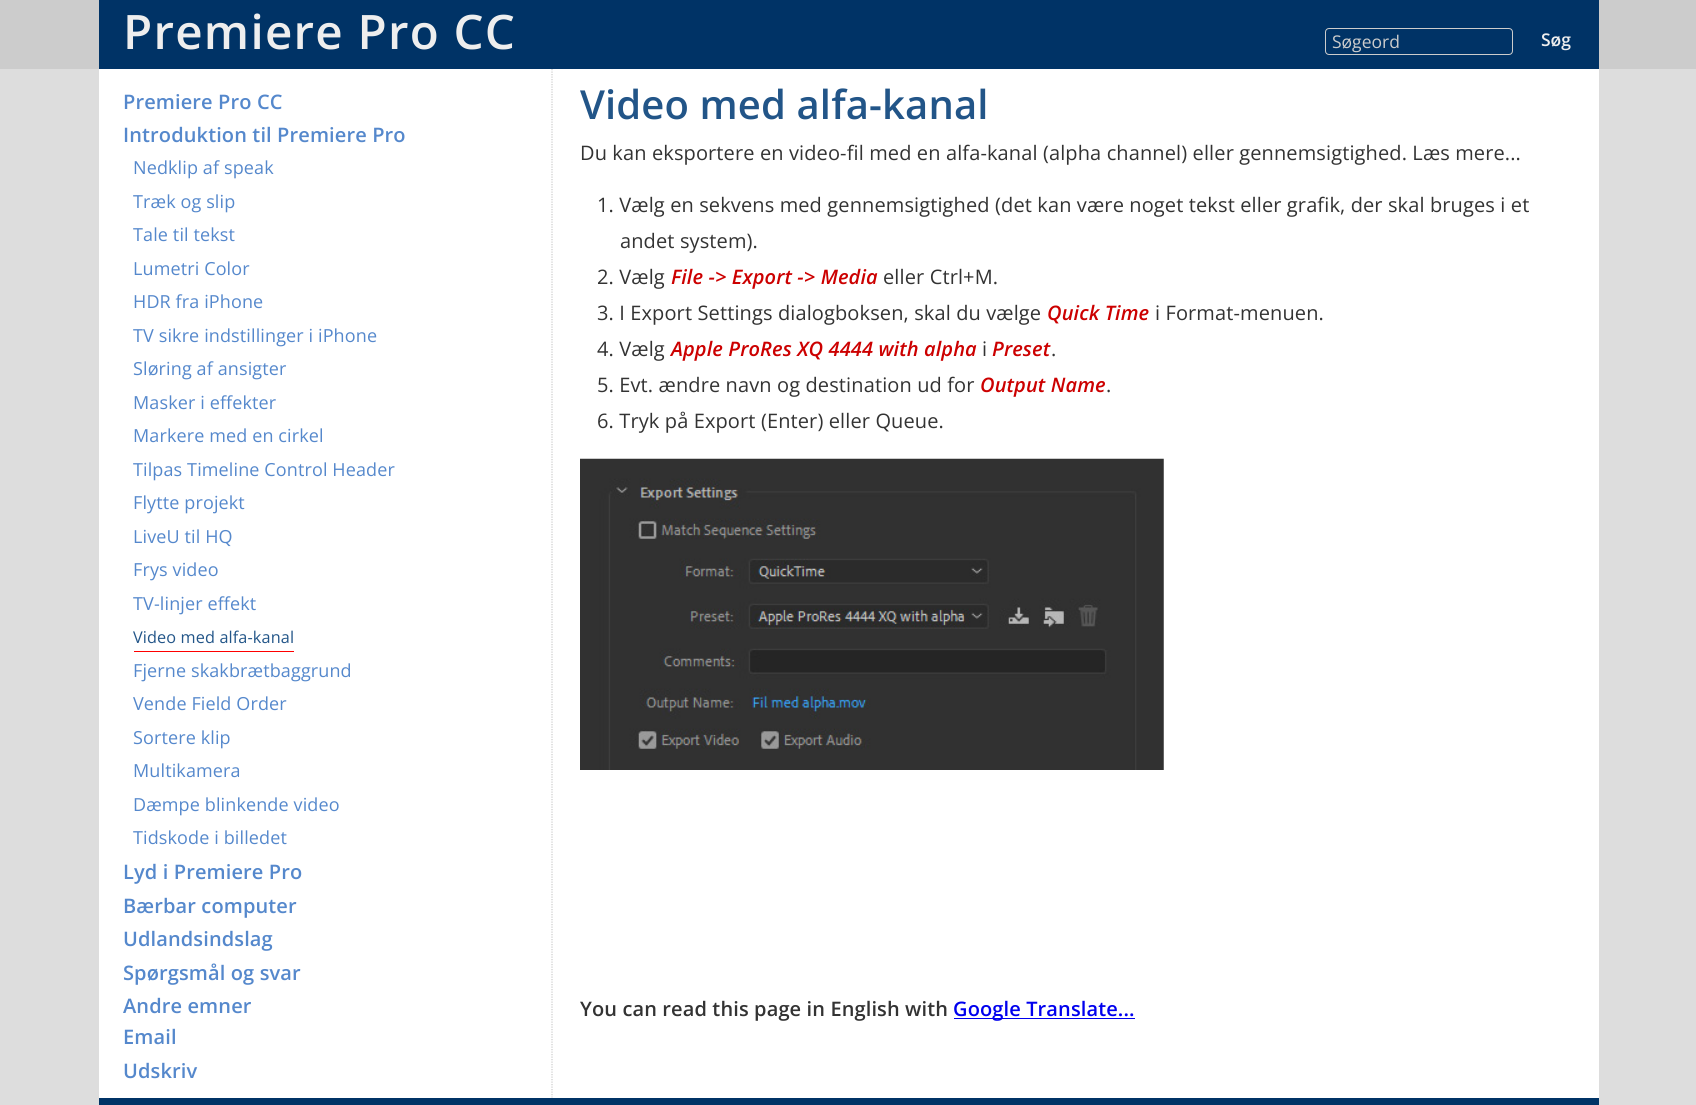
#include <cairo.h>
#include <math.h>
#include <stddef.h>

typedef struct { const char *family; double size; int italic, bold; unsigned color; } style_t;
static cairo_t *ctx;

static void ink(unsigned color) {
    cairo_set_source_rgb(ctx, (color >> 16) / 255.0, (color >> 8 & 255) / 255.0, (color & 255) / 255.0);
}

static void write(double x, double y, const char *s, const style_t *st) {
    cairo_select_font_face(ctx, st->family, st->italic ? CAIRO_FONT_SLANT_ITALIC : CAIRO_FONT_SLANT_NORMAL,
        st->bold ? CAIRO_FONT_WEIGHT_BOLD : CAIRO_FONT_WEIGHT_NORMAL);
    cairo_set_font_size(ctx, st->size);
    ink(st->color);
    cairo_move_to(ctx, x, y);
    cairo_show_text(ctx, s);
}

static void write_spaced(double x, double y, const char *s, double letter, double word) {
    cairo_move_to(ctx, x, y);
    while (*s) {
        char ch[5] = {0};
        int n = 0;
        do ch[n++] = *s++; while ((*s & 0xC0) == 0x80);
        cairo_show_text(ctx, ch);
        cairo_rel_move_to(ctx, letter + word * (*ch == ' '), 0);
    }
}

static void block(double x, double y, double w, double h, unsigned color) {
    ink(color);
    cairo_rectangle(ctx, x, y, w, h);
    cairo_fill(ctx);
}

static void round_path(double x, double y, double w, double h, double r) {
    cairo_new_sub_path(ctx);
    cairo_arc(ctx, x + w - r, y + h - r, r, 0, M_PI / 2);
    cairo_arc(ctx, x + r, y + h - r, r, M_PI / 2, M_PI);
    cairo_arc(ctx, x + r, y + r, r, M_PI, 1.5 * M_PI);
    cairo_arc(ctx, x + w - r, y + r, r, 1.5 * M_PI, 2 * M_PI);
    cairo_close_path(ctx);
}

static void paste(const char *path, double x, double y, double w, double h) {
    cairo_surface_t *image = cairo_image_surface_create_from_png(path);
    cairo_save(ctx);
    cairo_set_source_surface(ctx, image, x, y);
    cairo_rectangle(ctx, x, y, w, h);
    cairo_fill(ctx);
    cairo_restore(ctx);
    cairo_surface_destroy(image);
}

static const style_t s1 = {"Open Sans", 17.5, 0, 0, 0xcccccc};
static const style_t s2 = {"Open Sans SemiBold", 17.5, 0, 0, 0xeeeeee};

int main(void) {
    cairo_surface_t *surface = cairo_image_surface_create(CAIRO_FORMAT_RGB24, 1696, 1105);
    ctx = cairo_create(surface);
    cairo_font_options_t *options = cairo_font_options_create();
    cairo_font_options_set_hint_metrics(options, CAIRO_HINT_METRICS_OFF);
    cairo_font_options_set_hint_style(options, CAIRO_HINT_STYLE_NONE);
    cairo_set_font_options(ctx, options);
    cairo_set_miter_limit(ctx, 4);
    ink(0xdddddd);
    cairo_paint(ctx);
    block(0, 0, 1696, 69, 0xcccccc);
    block(99, 0, 1500, 69, 0x003366);
    cairo_select_font_face(ctx, "Open Sans SemiBold", CAIRO_FONT_SLANT_NORMAL, CAIRO_FONT_WEIGHT_NORMAL);
    cairo_set_font_size(ctx, 47.5);
    ink(0xeeeeee);
    write_spaced(123, 49, "Premiere Pro CC", 1.25, 0);
    round_path(1325.5, 28.5, 187, 26, 3.5);
    ink(0xcccccc);
    cairo_set_line_width(ctx, 1);
    cairo_stroke(ctx);
    write(1332, 48, "Søgeord", &s1);
    write(1541, 46, "Søg", &s2);
    block(99, 69, 1500, 1029, 0xffffff);
    cairo_new_path(ctx);
    cairo_move_to(ctx, 552, 69);
    cairo_line_to(ctx, 552, 1097.5);
    ink(0xcccccc);
    cairo_set_line_width(ctx, 1.2);
    cairo_set_dash(ctx, (double[]){1.25, 1.25}, 2, 0);
    cairo_stroke(ctx);
    cairo_set_font_size(ctx, 20);
    ink(0x5588cc);
    write_spaced(123, 109, "Premiere Pro CC", 0.12, 0);
    write_spaced(123, 142, "Introduktion til Premiere Pro", 0.12, 0);
    cairo_select_font_face(ctx, "Open Sans", CAIRO_FONT_SLANT_NORMAL, CAIRO_FONT_WEIGHT_NORMAL);
    cairo_set_font_size(ctx, 18);
    write_spaced(133, 174, "Nedklip af speak", 0.12, 0);
    write_spaced(133, 208, "Træk og slip", 0.12, 0);
    write_spaced(133, 241, "Tale til tekst", 0.12, 0);
    write_spaced(133, 275, "Lumetri Color", 0.12, 0);
    write_spaced(133, 308, "HDR fra iPhone", 0.12, 0);
    write_spaced(133, 342, "TV sikre indstillinger i iPhone", 0.12, 0);
    write_spaced(133, 375, "Sløring af ansigter", 0.12, 0);
    write_spaced(133, 409, "Masker i effekter", 0.12, 0);
    write_spaced(133, 442, "Markere med en cirkel", 0.12, 0);
    write_spaced(133, 476, "Tilpas Timeline Control Header", 0.12, 0);
    write_spaced(133, 509, "Flytte projekt", 0.12, 0);
    write_spaced(133, 543, "LiveU til HQ", 0.12, 0);
    write_spaced(133, 576, "Frys video", 0.12, 0);
    write_spaced(133, 610, "TV-linjer effekt", 0.12, 0);
    block(134, 651, 160, 1, 0xff0000);
    cairo_set_font_size(ctx, 16.25);
    ink(0x225588);
    write_spaced(133, 643, "Video med alfa-kanal", 0.12, 0);
    cairo_set_font_size(ctx, 18);
    ink(0x5588cc);
    write_spaced(133, 677, "Fjerne skakbrætbaggrund", 0.12, 0);
    write_spaced(133, 710, "Vende Field Order", 0.12, 0);
    write_spaced(133, 744, "Sortere klip", 0.12, 0);
    write_spaced(133, 777, "Multikamera", 0.12, 0);
    write_spaced(133, 811, "Dæmpe blinkende video", 0.12, 0);
    write_spaced(133, 844, "Tidskode i billedet", 0.12, 0);
    cairo_select_font_face(ctx, "Open Sans SemiBold", CAIRO_FONT_SLANT_NORMAL, CAIRO_FONT_WEIGHT_NORMAL);
    cairo_set_font_size(ctx, 20);
    write_spaced(123, 879, "Lyd i Premiere Pro", 0.12, 0);
    write_spaced(123, 913, "Bærbar computer", 0.12, 0);
    write_spaced(123, 946, "Udlandsindslag", 0.12, 0);
    write_spaced(123, 980, "Spørgsmål og svar", 0.12, 0);
    write_spaced(123, 1013, "Andre emner", 0.12, 0);
    write_spaced(123, 1044, "Email", 0.12, 0);
    write_spaced(123, 1078, "Udskriv", 0.12, 0);
    cairo_set_font_size(ctx, 40);
    ink(0x225588);
    write_spaced(580, 119, "Video med alfa-kanal", 0.12, 0);
    cairo_select_font_face(ctx, "Open Sans", CAIRO_FONT_SLANT_NORMAL, CAIRO_FONT_WEIGHT_NORMAL);
    cairo_set_font_size(ctx, 20);
    ink(0x333333);
    write_spaced(580, 160, "Du kan eksportere en video-fil med en alfa-kanal (alpha channel) eller gennemsigtighed. Læs mere...", 0.12, 0);
    write_spaced(597, 212, "1. Vælg en sekvens med gennemsigtighed (det kan være noget tekst eller grafik, der skal bruges i et", 0.12, 0);
    write_spaced(620, 248, "andet system).", 0.12, 0);
    write_spaced(597, 284, "2. Vælg", 0.12, 0);
    cairo_select_font_face(ctx, "Open Sans SemiBold", CAIRO_FONT_SLANT_ITALIC, CAIRO_FONT_WEIGHT_NORMAL);
    ink(0xcc0000);
    write_spaced(671, 284, "File -> Export -> Media", 0.12, 0);
    cairo_select_font_face(ctx, "Open Sans", CAIRO_FONT_SLANT_NORMAL, CAIRO_FONT_WEIGHT_NORMAL);
    ink(0x333333);
    write_spaced(883, 284, "eller Ctrl+M.", 0.12, 0);
    write_spaced(597, 320, "3. I Export Settings dialogboksen, skal du vælge", 0.12, 0);
    cairo_select_font_face(ctx, "Open Sans SemiBold", CAIRO_FONT_SLANT_ITALIC, CAIRO_FONT_WEIGHT_NORMAL);
    ink(0xcc0000);
    write_spaced(1047, 320, "Quick Time", 0.12, 0);
    cairo_select_font_face(ctx, "Open Sans", CAIRO_FONT_SLANT_NORMAL, CAIRO_FONT_WEIGHT_NORMAL);
    ink(0x333333);
    write_spaced(1155, 320, "i Format-menuen.", 0.12, 0);
    write_spaced(597, 356, "4. Vælg", 0.12, 0);
    cairo_select_font_face(ctx, "Open Sans SemiBold", CAIRO_FONT_SLANT_ITALIC, CAIRO_FONT_WEIGHT_NORMAL);
    ink(0xcc0000);
    write_spaced(671, 356, "Apple ProRes XQ 4444 with alpha", 0.12, 0);
    cairo_select_font_face(ctx, "Open Sans", CAIRO_FONT_SLANT_NORMAL, CAIRO_FONT_WEIGHT_NORMAL);
    ink(0x333333);
    write_spaced(982, 356, "i", 0.12, 0);
    cairo_select_font_face(ctx, "Open Sans SemiBold", CAIRO_FONT_SLANT_ITALIC, CAIRO_FONT_WEIGHT_NORMAL);
    ink(0xcc0000);
    write_spaced(992, 356, "Preset", 0.12, 0);
    cairo_select_font_face(ctx, "Open Sans", CAIRO_FONT_SLANT_NORMAL, CAIRO_FONT_WEIGHT_NORMAL);
    ink(0x333333);
    write_spaced(1051, 356, ".", 0.12, 0);
    write_spaced(597, 392, "5. Evt. ændre navn og destination ud for", 0.12, 0);
    cairo_select_font_face(ctx, "Open Sans SemiBold", CAIRO_FONT_SLANT_ITALIC, CAIRO_FONT_WEIGHT_NORMAL);
    ink(0xcc0000);
    write_spaced(980, 392, "Output Name", 0.12, 0);
    cairo_select_font_face(ctx, "Open Sans", CAIRO_FONT_SLANT_NORMAL, CAIRO_FONT_WEIGHT_NORMAL);
    ink(0x333333);
    write_spaced(1106, 392, ".", 0.12, 0);
    write_spaced(597, 428, "6. Tryk på Export (Enter) eller Queue.", 0.12, 0);
    paste("pic1.png", 580, 458, 584, 312);
    cairo_select_font_face(ctx, "Open Sans SemiBold", CAIRO_FONT_SLANT_NORMAL, CAIRO_FONT_WEIGHT_NORMAL);
    write_spaced(580, 1016, "You can read this page in English with", 0.12, 0);
    block(954, 1018, 181, 1, 0x0000ee);
    write_spaced(953, 1016, "Google Translate...", 0.12, 0);
    block(99, 1098, 1500, 7, 0x003366);
    cairo_surface_write_to_png(surface, "screenshot.png");
    cairo_font_options_destroy(options);
    cairo_destroy(ctx);
    cairo_surface_destroy(surface);
    return 0;
}
